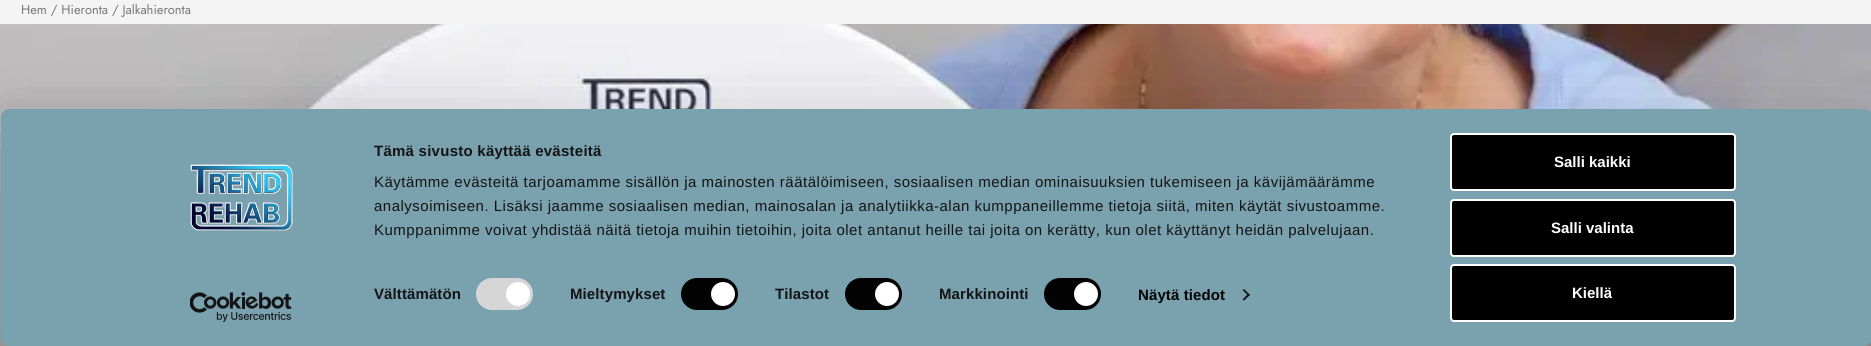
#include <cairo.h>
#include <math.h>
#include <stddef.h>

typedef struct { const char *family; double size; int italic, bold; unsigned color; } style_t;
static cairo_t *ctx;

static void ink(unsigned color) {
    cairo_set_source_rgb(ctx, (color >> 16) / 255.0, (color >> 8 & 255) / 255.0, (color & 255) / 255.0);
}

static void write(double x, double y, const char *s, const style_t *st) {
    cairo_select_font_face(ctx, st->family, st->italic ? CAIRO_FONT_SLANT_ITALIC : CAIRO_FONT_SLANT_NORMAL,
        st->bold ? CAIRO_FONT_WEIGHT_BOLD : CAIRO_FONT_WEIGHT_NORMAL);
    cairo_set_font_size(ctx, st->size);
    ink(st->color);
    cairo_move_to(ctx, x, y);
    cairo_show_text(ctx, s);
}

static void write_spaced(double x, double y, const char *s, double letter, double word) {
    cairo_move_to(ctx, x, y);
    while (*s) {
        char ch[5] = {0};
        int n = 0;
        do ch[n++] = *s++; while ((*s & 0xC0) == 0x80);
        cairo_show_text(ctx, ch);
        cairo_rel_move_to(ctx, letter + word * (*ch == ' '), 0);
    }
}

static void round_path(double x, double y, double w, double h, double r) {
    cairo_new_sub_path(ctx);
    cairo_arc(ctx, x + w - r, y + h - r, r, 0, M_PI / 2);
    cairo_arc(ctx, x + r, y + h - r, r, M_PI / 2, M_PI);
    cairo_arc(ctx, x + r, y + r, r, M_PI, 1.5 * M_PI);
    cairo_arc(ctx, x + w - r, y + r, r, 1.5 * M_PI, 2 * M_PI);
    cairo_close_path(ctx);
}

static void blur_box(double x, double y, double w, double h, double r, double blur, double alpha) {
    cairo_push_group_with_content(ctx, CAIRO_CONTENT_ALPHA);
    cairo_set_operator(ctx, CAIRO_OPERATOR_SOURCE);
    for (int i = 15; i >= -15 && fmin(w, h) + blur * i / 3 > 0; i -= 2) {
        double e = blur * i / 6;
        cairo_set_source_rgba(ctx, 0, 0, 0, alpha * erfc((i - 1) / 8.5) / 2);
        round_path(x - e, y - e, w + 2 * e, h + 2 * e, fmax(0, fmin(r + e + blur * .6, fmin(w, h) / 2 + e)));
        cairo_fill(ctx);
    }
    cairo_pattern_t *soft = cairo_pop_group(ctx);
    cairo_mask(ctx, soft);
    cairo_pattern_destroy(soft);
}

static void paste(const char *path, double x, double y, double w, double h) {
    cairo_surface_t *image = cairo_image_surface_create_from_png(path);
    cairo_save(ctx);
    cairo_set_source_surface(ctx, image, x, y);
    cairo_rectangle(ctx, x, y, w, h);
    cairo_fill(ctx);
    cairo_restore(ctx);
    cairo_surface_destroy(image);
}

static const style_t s1 = {"Jost", 12.9, 0, 0, 0x767676};
static const style_t s2 = {"Liberation Sans", 15, 0, 1, 0xffffff};

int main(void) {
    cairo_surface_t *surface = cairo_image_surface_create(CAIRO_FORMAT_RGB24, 1871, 346);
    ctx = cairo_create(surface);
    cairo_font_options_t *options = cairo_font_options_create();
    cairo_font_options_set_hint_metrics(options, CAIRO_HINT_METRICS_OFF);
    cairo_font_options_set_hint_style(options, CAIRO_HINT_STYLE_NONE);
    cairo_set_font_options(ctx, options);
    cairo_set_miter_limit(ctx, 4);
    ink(0xf4f4f4);
    cairo_paint(ctx);
    write(21, 14, "Hem / Hieronta / Jalkahieronta", &s1);
    paste("pic1.png", 0, 24, 1871, 322);
    ink(0x000000);
    blur_box(1, 139, 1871, 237, 8, 35, 0.3);
    ink(0x7aa1ae);
    round_path(1, 109, 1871, 237, 8);
    cairo_fill(ctx);
    paste("pic2.png", 190, 164, 103, 67);
    paste("pic3.png", 190, 292, 102, 30);
    cairo_save(ctx);
    cairo_rectangle(ctx, 374, 139, 1048, 103);
    cairo_clip(ctx);
    cairo_select_font_face(ctx, "Liberation Sans", CAIRO_FONT_SLANT_NORMAL, CAIRO_FONT_WEIGHT_BOLD);
    cairo_set_font_size(ctx, 15);
    ink(0x141414);
    write_spaced(374, 156, "Tämä sivusto käyttää evästeitä", 0.25, 0);
    cairo_restore(ctx);
    cairo_select_font_face(ctx, "Liberation Sans", CAIRO_FONT_SLANT_NORMAL, CAIRO_FONT_WEIGHT_NORMAL);
    cairo_set_font_size(ctx, 15);
    ink(0x141414);
    write_spaced(374, 187, "Käytämme evästeitä tarjoamamme sisällön ja mainosten räätälöimiseen, sosiaalisen median ominaisuuksien tukemiseen ja kävijämäärämme", 0.5, 0);
    write_spaced(374, 211, "analysoimiseen. Lisäksi jaamme sosiaalisen median, mainosalan ja analytiikka-alan kumppaneillemme tietoja siitä, miten käytät sivustoamme.", 0.5, 0);
    write_spaced(374, 235, "Kumppanimme voivat yhdistää näitä tietoja muihin tietoihin, joita olet antanut heille tai joita on kerätty, kun olet käyttänyt heidän palvelujaan.", 0.5, 0);
    cairo_select_font_face(ctx, "Liberation Sans", CAIRO_FONT_SLANT_NORMAL, CAIRO_FONT_WEIGHT_BOLD);
    write_spaced(374, 299, "Välttämätön", 0.1, 0);
    ink(0xd6d6d6);
    round_path(476, 278, 57, 32, 16);
    cairo_fill(ctx);
    ink(0xffffff);
    cairo_arc(ctx, 518, 294, 12, 0, 2 * M_PI);
    cairo_fill(ctx);
    ink(0x141414);
    write_spaced(570, 299, "Mieltymykset", 0.1, 0);
    ink(0x030303);
    round_path(681, 278, 57, 32, 16);
    cairo_fill(ctx);
    ink(0xffffff);
    cairo_arc(ctx, 723, 294, 12, 0, 2 * M_PI);
    cairo_fill(ctx);
    ink(0x141414);
    write_spaced(775, 299, "Tilastot", 0.1, 0);
    ink(0x030303);
    round_path(845, 278, 57, 32, 16);
    cairo_fill(ctx);
    ink(0xffffff);
    cairo_arc(ctx, 887, 294, 12, 0, 2 * M_PI);
    cairo_fill(ctx);
    ink(0x141414);
    write_spaced(939, 299, "Markkinointi", 0.1, 0);
    ink(0x030303);
    round_path(1044, 278, 57, 32, 16);
    cairo_fill(ctx);
    ink(0xffffff);
    cairo_arc(ctx, 1086, 294, 12, 0, 2 * M_PI);
    cairo_fill(ctx);
    ink(0x030303);
    write_spaced(1138, 300, "Näytä tiedot", 0.1, 0);
    ink(0x141414);
    cairo_new_path(ctx);
    cairo_move_to(ctx, 1244, 289);
    cairo_line_to(ctx, 1250, 295);
    cairo_line_to(ctx, 1248.5, 296);
    cairo_line_to(ctx, 1242.5, 290);
    cairo_close_path(ctx);
    cairo_fill(ctx);
    cairo_new_path(ctx);
    cairo_move_to(ctx, 1248.5, 293.5);
    cairo_line_to(ctx, 1250, 295);
    cairo_line_to(ctx, 1244, 300.5);
    cairo_line_to(ctx, 1242.5, 299.5);
    cairo_close_path(ctx);
    cairo_fill(ctx);
    ink(0x000000);
    round_path(1451, 134, 284, 56, 3);
    cairo_fill_preserve(ctx);
    ink(0xffffff);
    cairo_stroke(ctx);
    write(1554, 167, "Salli kaikki", &s2);
    ink(0x000000);
    round_path(1451, 200, 284, 56, 3);
    cairo_fill_preserve(ctx);
    ink(0xffffff);
    cairo_stroke(ctx);
    write(1551, 233, "Salli valinta", &s2);
    ink(0x000000);
    round_path(1451, 265, 284, 56, 3);
    cairo_fill_preserve(ctx);
    ink(0xffffff);
    cairo_stroke(ctx);
    write(1572, 298, "Kiellä", &s2);
    cairo_surface_write_to_png(surface, "screenshot.png");
    cairo_font_options_destroy(options);
    cairo_destroy(ctx);
    cairo_surface_destroy(surface);
    return 0;
}
